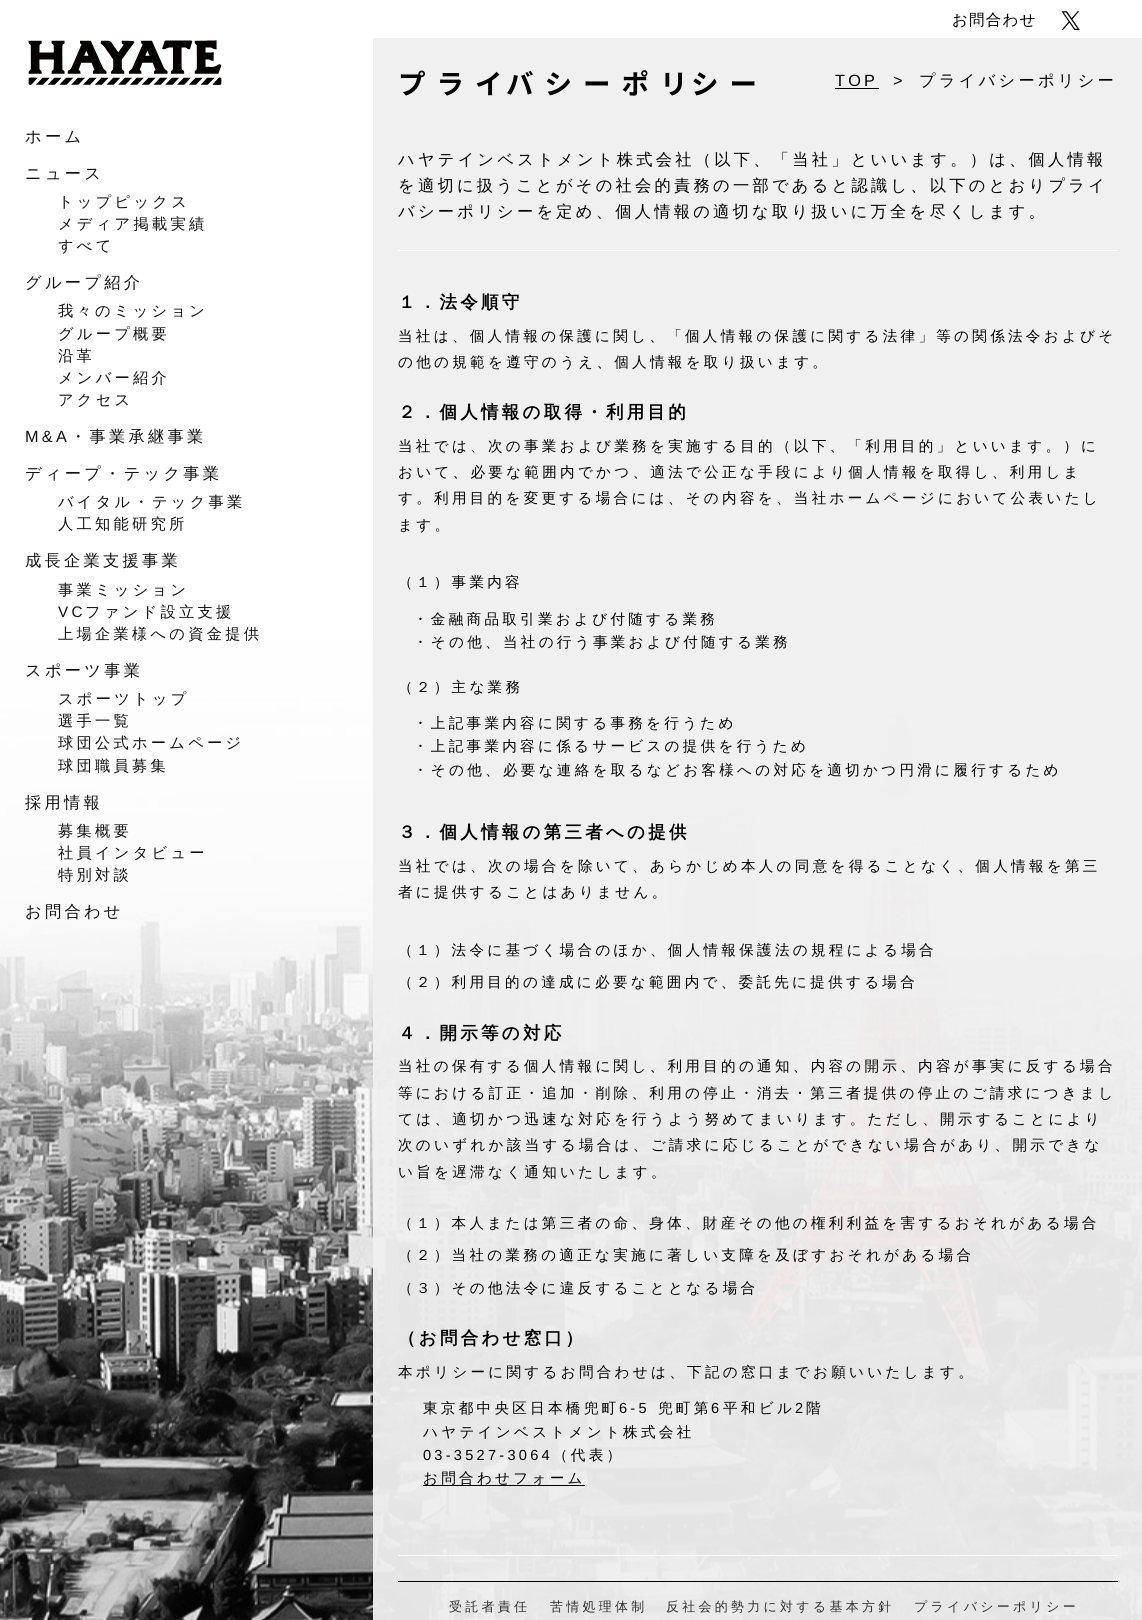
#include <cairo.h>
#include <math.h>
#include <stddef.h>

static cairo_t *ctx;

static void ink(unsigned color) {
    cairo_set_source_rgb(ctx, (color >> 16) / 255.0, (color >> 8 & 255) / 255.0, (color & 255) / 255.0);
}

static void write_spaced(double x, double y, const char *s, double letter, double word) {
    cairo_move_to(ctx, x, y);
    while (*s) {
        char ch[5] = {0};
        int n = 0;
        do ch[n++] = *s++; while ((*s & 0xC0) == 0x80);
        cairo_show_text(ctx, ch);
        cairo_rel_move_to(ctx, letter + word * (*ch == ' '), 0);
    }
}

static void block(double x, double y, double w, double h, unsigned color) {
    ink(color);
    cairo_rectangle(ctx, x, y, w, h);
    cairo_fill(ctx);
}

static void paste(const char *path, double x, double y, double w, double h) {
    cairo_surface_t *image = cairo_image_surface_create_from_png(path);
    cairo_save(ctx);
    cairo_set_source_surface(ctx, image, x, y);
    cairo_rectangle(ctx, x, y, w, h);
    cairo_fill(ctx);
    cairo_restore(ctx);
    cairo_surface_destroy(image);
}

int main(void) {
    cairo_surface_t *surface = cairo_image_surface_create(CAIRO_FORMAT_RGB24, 1142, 1620);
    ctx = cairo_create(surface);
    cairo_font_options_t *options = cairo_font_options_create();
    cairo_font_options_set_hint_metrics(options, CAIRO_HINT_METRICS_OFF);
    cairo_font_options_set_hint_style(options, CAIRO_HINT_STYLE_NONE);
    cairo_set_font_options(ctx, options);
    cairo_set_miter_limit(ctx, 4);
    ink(0xffffff);
    cairo_paint(ctx);
    cairo_select_font_face(ctx, "WenQuanYi Zen Hei Medium", CAIRO_FONT_SLANT_NORMAL, CAIRO_FONT_WEIGHT_NORMAL);
    cairo_set_font_size(ctx, 15.5);
    ink(0x000000);
    write_spaced(952, 25, "お問合わせ", 1.25, 0);
    paste("pic1.png", 1061, 11, 19, 19);
    paste("pic2.png", 28, 40, 194, 45);
    cairo_set_font_size(ctx, 16.25);
    ink(0x111111);
    write_spaced(25, 142, "ホーム", 3.25, 0);
    write_spaced(25, 179, "ニュース", 3.25, 0);
    cairo_set_font_size(ctx, 15.25);
    write_spaced(58, 207, "トップピックス", 3.25, 0);
    write_spaced(58, 229, "メディア掲載実績", 3.25, 0);
    write_spaced(58, 251, "すべて", 3.25, 0);
    cairo_set_font_size(ctx, 16.25);
    write_spaced(25, 288, "グループ紹介", 3.25, 0);
    cairo_set_font_size(ctx, 15.25);
    write_spaced(58, 316, "我々のミッション", 3.25, 0);
    write_spaced(58, 339, "グループ概要", 3.25, 0);
    write_spaced(58, 361, "沿革", 3.25, 0);
    write_spaced(58, 383, "メンバー紹介", 3.25, 0);
    write_spaced(58, 405, "アクセス", 3.25, 0);
    cairo_select_font_face(ctx, "Liberation Sans", CAIRO_FONT_SLANT_NORMAL, CAIRO_FONT_WEIGHT_NORMAL);
    cairo_set_font_size(ctx, 16.25);
    write_spaced(25, 442, "M&A", 3.25, 0);
    cairo_select_font_face(ctx, "WenQuanYi Zen Hei Medium", CAIRO_FONT_SLANT_NORMAL, CAIRO_FONT_WEIGHT_NORMAL);
    write_spaced(70, 442, "・事業承継事業", 3.25, 0);
    write_spaced(25, 479, "ディープ・テック事業", 3.25, 0);
    cairo_set_font_size(ctx, 15.25);
    write_spaced(58, 507, "バイタル・テック事業", 3.25, 0);
    write_spaced(58, 529, "人工知能研究所", 3.25, 0);
    cairo_set_font_size(ctx, 16.25);
    write_spaced(25, 566, "成長企業支援事業", 3.25, 0);
    cairo_set_font_size(ctx, 15.25);
    write_spaced(58, 595, "事業ミッション", 3.25, 0);
    cairo_select_font_face(ctx, "Liberation Sans", CAIRO_FONT_SLANT_NORMAL, CAIRO_FONT_WEIGHT_NORMAL);
    write_spaced(58, 617, "VC", 3.25, 0);
    cairo_select_font_face(ctx, "WenQuanYi Zen Hei Medium", CAIRO_FONT_SLANT_NORMAL, CAIRO_FONT_WEIGHT_NORMAL);
    write_spaced(85, 617, "ファンド設立支援", 3.25, 0);
    paste("pic3.png", 0, 641, 1142, 979);
    write_spaced(58, 639, "上場企業様への資金提供", 3.25, 0);
    cairo_set_font_size(ctx, 16.25);
    write_spaced(25, 676, "スポーツ事業", 3.25, 0);
    cairo_set_font_size(ctx, 15.25);
    write_spaced(58, 704, "スポーツトップ", 3.25, 0);
    write_spaced(58, 726, "選手一覧", 3.25, 0);
    write_spaced(58, 748, "球団公式ホームページ", 3.25, 0);
    write_spaced(58, 771, "球団職員募集", 3.25, 0);
    cairo_set_font_size(ctx, 16.25);
    write_spaced(25, 808, "採用情報", 3.25, 0);
    cairo_set_font_size(ctx, 15.25);
    write_spaced(58, 836, "募集概要", 3.25, 0);
    write_spaced(58, 858, "社員インタビュー", 3.25, 0);
    write_spaced(58, 880, "特別対談", 3.25, 0);
    cairo_set_font_size(ctx, 16.25);
    write_spaced(25, 917, "お問合わせ", 3.25, 0);
    cairo_set_source_rgba(ctx, 0.941, 0.941, 0.941, 0.95);
    cairo_rectangle(ctx, 373, 38, 769, 1582);
    cairo_fill(ctx);
    cairo_select_font_face(ctx, "Noto Sans JP", CAIRO_FONT_SLANT_NORMAL, CAIRO_FONT_WEIGHT_BOLD);
    cairo_set_font_size(ctx, 27.5);
    ink(0x000000);
    write_spaced(398, 94, "プライ", 11, 0);
    write_spaced(506, 94, "バシーポリ", 11, 0);
    write_spaced(691, 94, "シー", 11, 0);
    cairo_select_font_face(ctx, "Liberation Sans", CAIRO_FONT_SLANT_NORMAL, CAIRO_FONT_WEIGHT_NORMAL);
    cairo_set_font_size(ctx, 16.25);
    write_spaced(835, 86, "TOP", 3.25, 0);
    block(835, 88, 44, 1, 0x000000);
    write_spaced(893, 86, ">", 3.25, 0);
    cairo_select_font_face(ctx, "WenQuanYi Zen Hei Medium", CAIRO_FONT_SLANT_NORMAL, CAIRO_FONT_WEIGHT_NORMAL);
    write_spaced(919, 86, "プライバシーポリシー", 3.25, 0);
    write_spaced(398, 165, "ハヤテインベストメント株式会社（以下、「当社」といいます。）は、個人情報", 3.25, 0);
    write_spaced(398, 191, "を適切に扱うことがその社会的責務の一部であると認識し、以下のとおりプライ", 3.25, 0);
    write_spaced(398, 217, "バシーポリシーを定め、個人情報の適切な取り扱いに万全を尽くします。", 3.25, 0);
    block(398, 250, 720, 1, 0xffffff);
    block(398, 1555, 720, 1, 0xffffff);
    cairo_select_font_face(ctx, "WenQuanYi Zen Hei", CAIRO_FONT_SLANT_NORMAL, CAIRO_FONT_WEIGHT_BOLD);
    cairo_set_font_size(ctx, 17.5);
    ink(0x000000);
    write_spaced(398, 308, "１．法令順守", 3.25, 0);
    cairo_select_font_face(ctx, "WenQuanYi Zen Hei Medium", CAIRO_FONT_SLANT_NORMAL, CAIRO_FONT_WEIGHT_NORMAL);
    cairo_set_font_size(ctx, 14.6);
    write_spaced(398, 341, "当社は、個人情報の保護に関し、「個人情報の保護に関する法律」等の関係法令およびそ", 3.25, 0);
    write_spaced(398, 367, "の他の規範を遵守のうえ、個人情報を取り扱います。", 3.25, 0);
    cairo_select_font_face(ctx, "WenQuanYi Zen Hei", CAIRO_FONT_SLANT_NORMAL, CAIRO_FONT_WEIGHT_BOLD);
    cairo_set_font_size(ctx, 17.5);
    write_spaced(398, 418, "２．個人情報の取得・利用目的", 3.25, 0);
    cairo_select_font_face(ctx, "WenQuanYi Zen Hei Medium", CAIRO_FONT_SLANT_NORMAL, CAIRO_FONT_WEIGHT_NORMAL);
    cairo_set_font_size(ctx, 14.6);
    write_spaced(398, 451, "当社では、次の事業および業務を実施する目的（以下、「利用目的」といいます。）に", 3.25, 0);
    write_spaced(398, 477, "おいて、必要な範囲内でかつ、適法で公正な手段により個人情報を取得し、利用しま", 3.25, 0);
    write_spaced(398, 503, "す。利用目的を変更する場合には、その内容を、当社ホームページにおいて公表いたし", 3.25, 0);
    write_spaced(398, 530, "ます。", 3.25, 0);
    write_spaced(398, 587, "（１）事業内容", 3.25, 0);
    write_spaced(413, 624, "・金融商品取引業および付随する業務", 3.25, 0);
    write_spaced(413, 647, "・その他、当社の行う事業および付随する業務", 3.25, 0);
    write_spaced(398, 692, "（２）主な業務", 3.25, 0);
    write_spaced(413, 728, "・上記事業内容に関する事務を行うため", 3.25, 0);
    write_spaced(413, 751, "・上記事業内容に係るサービスの提供を行うため", 3.25, 0);
    write_spaced(413, 775, "・その他、必要な連絡を取るなどお客様への対応を適切かつ円滑に履行するため", 3.25, 0);
    cairo_select_font_face(ctx, "WenQuanYi Zen Hei", CAIRO_FONT_SLANT_NORMAL, CAIRO_FONT_WEIGHT_BOLD);
    cairo_set_font_size(ctx, 17.5);
    write_spaced(398, 838, "３．個人情報の第三者への提供", 3.25, 0);
    cairo_select_font_face(ctx, "WenQuanYi Zen Hei Medium", CAIRO_FONT_SLANT_NORMAL, CAIRO_FONT_WEIGHT_NORMAL);
    cairo_set_font_size(ctx, 14.6);
    write_spaced(398, 871, "当社では、次の場合を除いて、あらかじめ本人の同意を得ることなく、個人情報を第三", 3.25, 0);
    write_spaced(398, 897, "者に提供することはありません。", 3.25, 0);
    write_spaced(398, 955, "（１）法令に基づく場合のほか、個人情報保護法の規程による場合", 3.25, 0);
    write_spaced(398, 987, "（２）利用目的の達成に必要な範囲内で、委託先に提供する場合", 3.25, 0);
    cairo_select_font_face(ctx, "WenQuanYi Zen Hei", CAIRO_FONT_SLANT_NORMAL, CAIRO_FONT_WEIGHT_BOLD);
    cairo_set_font_size(ctx, 17.5);
    write_spaced(398, 1039, "４．開示等の対応", 3.25, 0);
    cairo_select_font_face(ctx, "WenQuanYi Zen Hei Medium", CAIRO_FONT_SLANT_NORMAL, CAIRO_FONT_WEIGHT_NORMAL);
    cairo_set_font_size(ctx, 14.6);
    write_spaced(398, 1071, "当社の保有する個人情報に関し、利用目的の通知、内容の開示、内容が事実に反する場合", 3.25, 0);
    write_spaced(398, 1098, "等における訂正・追加・削除、利用の停止・消去・第三者提供の停止のご請求につきまし", 3.25, 0);
    write_spaced(398, 1124, "ては、適切かつ迅速な対応を行うよう努めてまいります。ただし、開示することにより", 3.25, 0);
    write_spaced(398, 1150, "次のいずれか該当する場合は、ご請求に応じることができない場合があり、開示できな", 3.25, 0);
    write_spaced(398, 1177, "い旨を遅滞なく通知いたします。", 3.25, 0);
    write_spaced(398, 1228, "（１）本人または第三者の命、身体、財産その他の権利利益を害するおそれがある場合", 3.25, 0);
    write_spaced(398, 1260, "（２）当社の業務の適正な実施に著しい支障を及ぼすおそれがある場合", 3.25, 0);
    write_spaced(398, 1293, "（３）その他法令に違反することとなる場合", 3.25, 0);
    cairo_select_font_face(ctx, "WenQuanYi Zen Hei", CAIRO_FONT_SLANT_NORMAL, CAIRO_FONT_WEIGHT_BOLD);
    cairo_set_font_size(ctx, 17.5);
    write_spaced(398, 1344, "（お問合わせ窓口）", 3.25, 0);
    cairo_select_font_face(ctx, "WenQuanYi Zen Hei Medium", CAIRO_FONT_SLANT_NORMAL, CAIRO_FONT_WEIGHT_NORMAL);
    cairo_set_font_size(ctx, 14.6);
    write_spaced(398, 1377, "本ポリシーに関するお問合わせは、下記の窓口までお願いいたします。", 3.25, 0);
    write_spaced(423, 1413, "東京都中央区日本橋兜町", 3.25, 0);
    cairo_select_font_face(ctx, "Liberation Sans", CAIRO_FONT_SLANT_NORMAL, CAIRO_FONT_WEIGHT_NORMAL);
    write_spaced(619, 1413, "6-5", 3.25, 0);
    cairo_select_font_face(ctx, "WenQuanYi Zen Hei Medium", CAIRO_FONT_SLANT_NORMAL, CAIRO_FONT_WEIGHT_NORMAL);
    write_spaced(658, 1413, "兜町第", 3.25, 0);
    cairo_select_font_face(ctx, "Liberation Sans", CAIRO_FONT_SLANT_NORMAL, CAIRO_FONT_WEIGHT_NORMAL);
    write_spaced(711, 1413, "6", 3.25, 0);
    cairo_select_font_face(ctx, "WenQuanYi Zen Hei Medium", CAIRO_FONT_SLANT_NORMAL, CAIRO_FONT_WEIGHT_NORMAL);
    write_spaced(723, 1413, "平和ビル", 3.25, 0);
    cairo_select_font_face(ctx, "Liberation Sans", CAIRO_FONT_SLANT_NORMAL, CAIRO_FONT_WEIGHT_NORMAL);
    write_spaced(795, 1413, "2", 3.25, 0);
    cairo_select_font_face(ctx, "WenQuanYi Zen Hei Medium", CAIRO_FONT_SLANT_NORMAL, CAIRO_FONT_WEIGHT_NORMAL);
    write_spaced(806, 1413, "階", 3.25, 0);
    write_spaced(423, 1437, "ハヤテインベストメント株式会社", 3.25, 0);
    cairo_select_font_face(ctx, "Liberation Sans", CAIRO_FONT_SLANT_NORMAL, CAIRO_FONT_WEIGHT_NORMAL);
    write_spaced(423, 1460, "03-3527-3064", 3.25, 0);
    cairo_select_font_face(ctx, "WenQuanYi Zen Hei Medium", CAIRO_FONT_SLANT_NORMAL, CAIRO_FONT_WEIGHT_NORMAL);
    write_spaced(553, 1460, "（代表）", 3.25, 0);
    block(423, 1485, 162, 1, 0x000000);
    write_spaced(423, 1483, "お問合わせフォーム", 3.25, 0);
    block(398, 1581, 720, 1, 0x000000);
    cairo_set_font_size(ctx, 13);
    ink(0x323232);
    write_spaced(449, 1611, "受託者責任", 3.25, 0);
    write_spaced(550, 1611, "苦情処理体制", 3.25, 0);
    write_spaced(666, 1611, "反社会的勢力に対する基本方針", 3.25, 0);
    write_spaced(914, 1611, "プライバシーポリシー", 3.25, 0);
    cairo_surface_write_to_png(surface, "screenshot.png");
    cairo_font_options_destroy(options);
    cairo_destroy(ctx);
    cairo_surface_destroy(surface);
    return 0;
}
